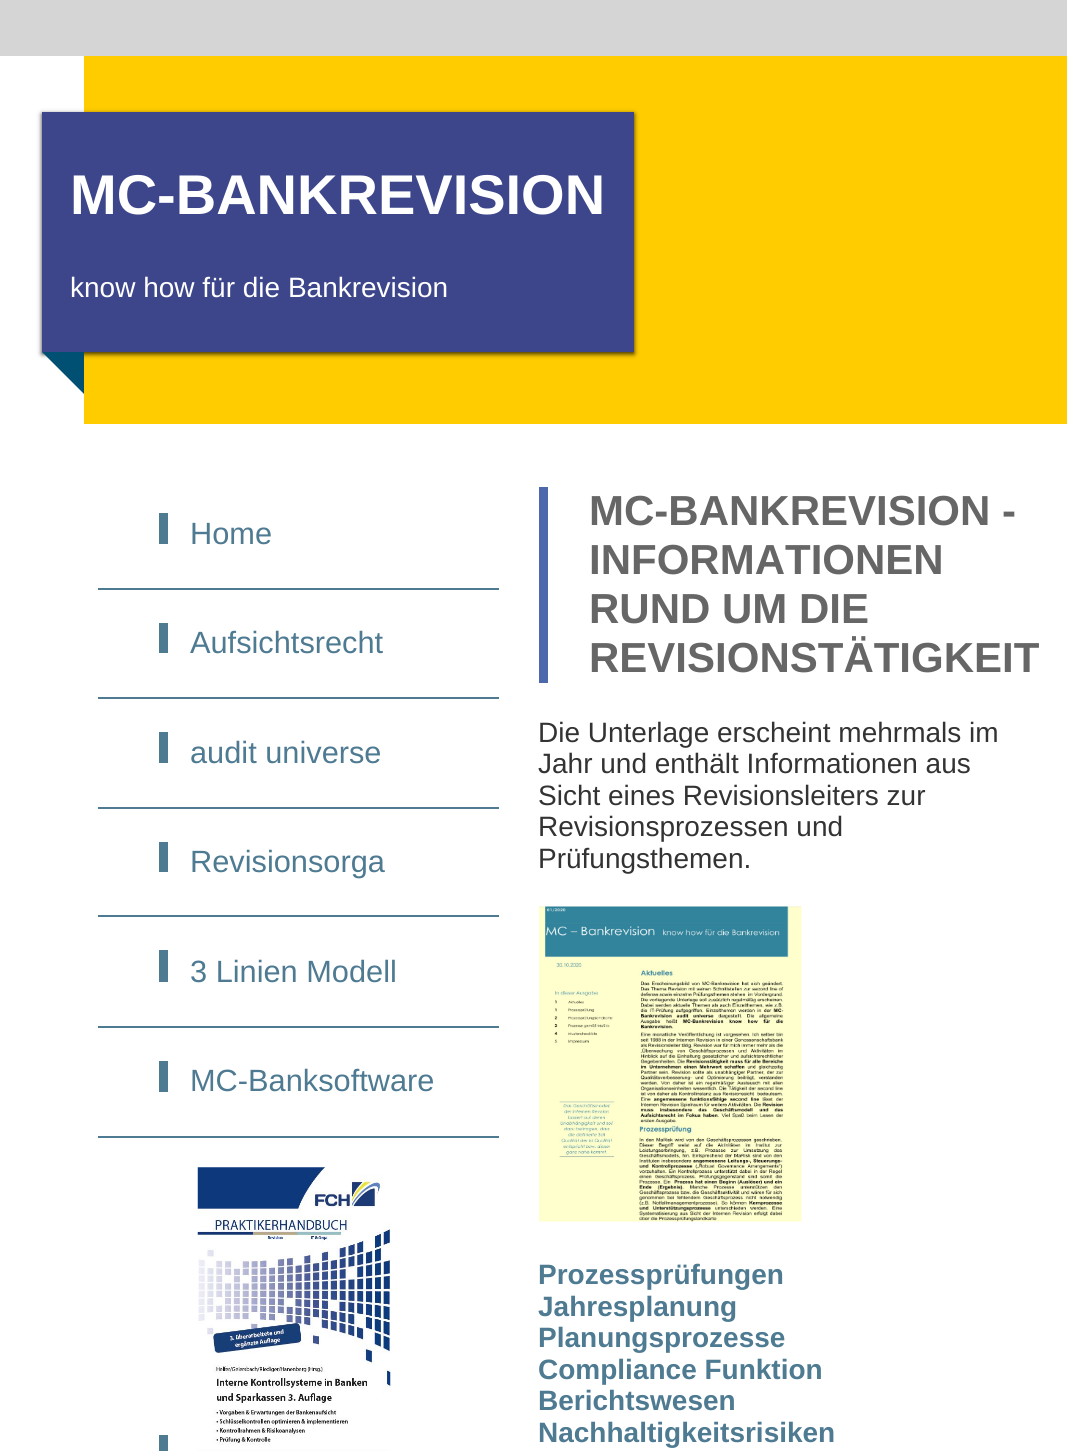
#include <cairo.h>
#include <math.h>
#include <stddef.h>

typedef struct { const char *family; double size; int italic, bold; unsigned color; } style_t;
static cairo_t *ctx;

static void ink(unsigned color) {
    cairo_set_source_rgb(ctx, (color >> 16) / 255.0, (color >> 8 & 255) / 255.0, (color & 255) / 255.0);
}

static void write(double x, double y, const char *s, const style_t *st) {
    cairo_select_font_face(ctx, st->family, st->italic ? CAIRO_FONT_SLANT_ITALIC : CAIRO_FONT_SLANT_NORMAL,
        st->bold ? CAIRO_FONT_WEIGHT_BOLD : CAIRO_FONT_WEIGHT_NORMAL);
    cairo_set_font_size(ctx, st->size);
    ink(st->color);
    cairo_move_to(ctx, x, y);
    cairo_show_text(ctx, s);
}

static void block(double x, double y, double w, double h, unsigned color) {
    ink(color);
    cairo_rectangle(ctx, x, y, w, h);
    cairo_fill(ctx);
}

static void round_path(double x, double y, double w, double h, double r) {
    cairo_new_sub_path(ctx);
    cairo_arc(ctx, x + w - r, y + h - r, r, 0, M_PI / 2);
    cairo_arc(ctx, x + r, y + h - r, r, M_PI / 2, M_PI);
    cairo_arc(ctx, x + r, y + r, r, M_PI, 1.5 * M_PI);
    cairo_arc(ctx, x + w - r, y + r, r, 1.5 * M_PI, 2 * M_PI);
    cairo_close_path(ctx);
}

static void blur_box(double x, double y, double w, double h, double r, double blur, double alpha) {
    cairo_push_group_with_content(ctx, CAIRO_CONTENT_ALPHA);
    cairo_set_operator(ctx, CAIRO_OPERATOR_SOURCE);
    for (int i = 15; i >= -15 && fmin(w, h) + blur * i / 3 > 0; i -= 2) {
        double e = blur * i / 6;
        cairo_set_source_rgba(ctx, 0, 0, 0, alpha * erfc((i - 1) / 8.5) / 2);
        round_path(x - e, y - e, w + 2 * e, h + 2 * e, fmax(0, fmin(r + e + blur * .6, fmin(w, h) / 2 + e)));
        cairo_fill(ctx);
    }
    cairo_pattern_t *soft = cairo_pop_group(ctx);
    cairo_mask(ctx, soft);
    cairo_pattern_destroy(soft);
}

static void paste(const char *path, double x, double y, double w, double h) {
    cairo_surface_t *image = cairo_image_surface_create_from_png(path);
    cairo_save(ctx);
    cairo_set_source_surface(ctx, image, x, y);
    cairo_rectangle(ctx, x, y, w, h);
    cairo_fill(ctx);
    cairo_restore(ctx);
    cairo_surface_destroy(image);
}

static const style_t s1 = {"Liberation Sans", 56, 0, 1, 0xffffff};
static const style_t s2 = {"Liberation Sans", 28, 0, 0, 0xffffff};
static const style_t s3 = {"Liberation Sans", 30.75, 0, 0, 0x4e7a92};
static const style_t s4 = {"Liberation Sans", 42, 0, 1, 0x666666};
static const style_t s5 = {"Liberation Sans", 28, 0, 0, 0x333333};
static const style_t s6 = {"Liberation Sans", 28, 0, 1, 0x4e7a92};

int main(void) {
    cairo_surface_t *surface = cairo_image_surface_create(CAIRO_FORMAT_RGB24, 1067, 1451);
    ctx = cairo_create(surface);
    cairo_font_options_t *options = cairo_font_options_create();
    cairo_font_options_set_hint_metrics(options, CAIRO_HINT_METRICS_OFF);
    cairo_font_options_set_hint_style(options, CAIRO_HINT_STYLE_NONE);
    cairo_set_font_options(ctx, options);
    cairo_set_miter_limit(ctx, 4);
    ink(0xd5d5d5);
    cairo_paint(ctx);
    block(0, 56, 1067, 1395, 0xffffff);
    block(84, 56, 983, 368, 0xffcc00);
    ink(0x000000);
    blur_box(42, 114, 592, 240, 0, 2.5, 0.8);
    block(42, 112, 592, 240, 0x3d468b);
    write(70, 214, "MC-BANKREVISION", &s1);
    write(70, 297, "know how für die Bankrevision", &s2);
    ink(0x005074);
    cairo_new_path(ctx);
    cairo_move_to(ctx, 84, 352);
    cairo_line_to(ctx, 84, 394);
    cairo_line_to(ctx, 42, 352);
    cairo_close_path(ctx);
    cairo_fill(ctx);
    block(98, 588, 401, 2, 0x4e7a92);
    block(159, 513, 9, 31, 0x4e7a92);
    write(190, 544, "Home", &s3);
    block(98, 697, 401, 2, 0x4e7a92);
    block(159, 623, 9, 30, 0x4e7a92);
    write(190, 653, "Aufsichtsrecht", &s3);
    block(98, 807, 401, 2, 0x4e7a92);
    block(159, 732, 9, 31, 0x4e7a92);
    write(190, 763, "audit universe", &s3);
    block(98, 915, 401, 2, 0x4e7a92);
    block(159, 842, 9, 30, 0x4e7a92);
    write(190, 872, "Revisionsorga", &s3);
    block(98, 1026, 401, 2, 0x4e7a92);
    block(159, 950, 9, 32, 0x4e7a92);
    write(190, 982, "3 Linien Modell", &s3);
    block(98, 1136, 401, 2, 0x4e7a92);
    block(159, 1061, 9, 31, 0x4e7a92);
    write(190, 1091, "MC-Banksoftware", &s3);
    block(159, 1435, 9, 16, 0x4e7a92);
    paste("pic1.png", 197, 1167, 194, 284);
    block(539, 487, 9, 196, 0x4e68ad);
    write(589, 525, "MC-BANKREVISION -", &s4);
    write(589, 574, "INFORMATIONEN", &s4);
    write(589, 623, "RUND UM DIE", &s4);
    write(589, 672, "REVISIONSTÄTIGKEIT", &s4);
    write(538, 742, "Die Unterlage erscheint mehrmals im", &s5);
    write(538, 773, "Jahr und enthält Informationen aus", &s5);
    write(538, 805, "Sicht eines Revisionsleiters zur", &s5);
    write(538, 836, "Revisionsprozessen und", &s5);
    write(538, 868, "Prüfungsthemen.", &s5);
    paste("pic2.png", 539, 906, 263, 316);
    write(538, 1284, "Prozessprüfungen", &s6);
    write(538, 1316, "Jahresplanung", &s6);
    write(538, 1347, "Planungsprozesse", &s6);
    write(538, 1379, "Compliance Funktion", &s6);
    write(538, 1410, "Berichtswesen", &s6);
    write(538, 1442, "Nachhaltigkeitsrisiken", &s6);
    cairo_surface_write_to_png(surface, "screenshot.png");
    cairo_font_options_destroy(options);
    cairo_destroy(ctx);
    cairo_surface_destroy(surface);
    return 0;
}
